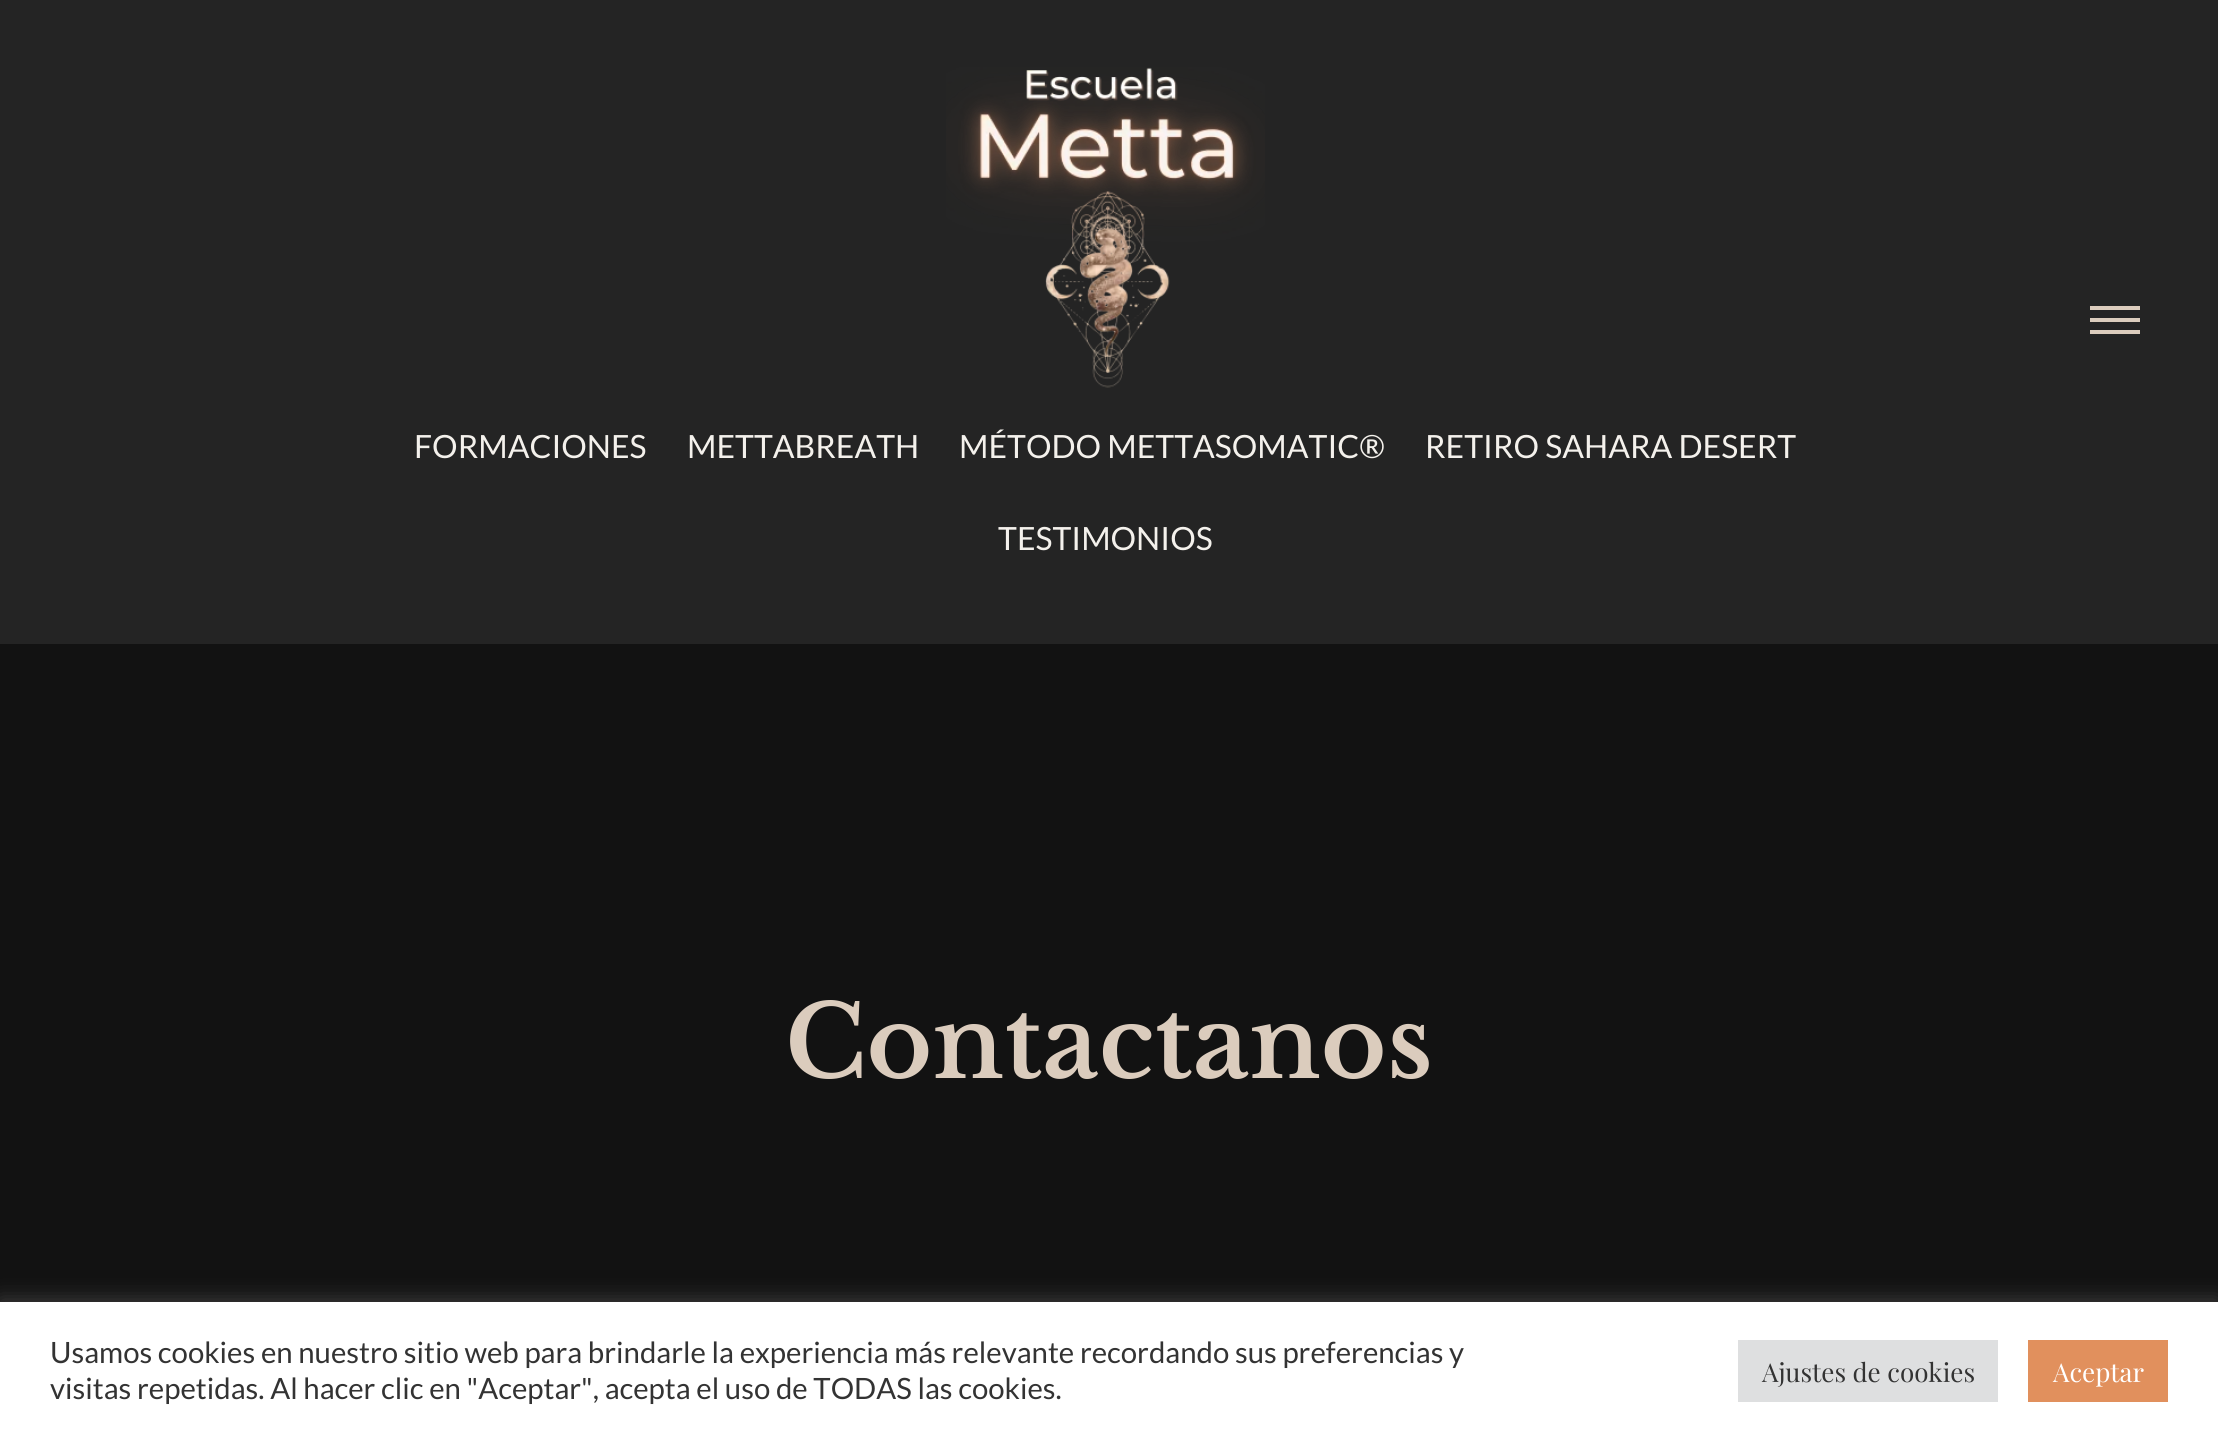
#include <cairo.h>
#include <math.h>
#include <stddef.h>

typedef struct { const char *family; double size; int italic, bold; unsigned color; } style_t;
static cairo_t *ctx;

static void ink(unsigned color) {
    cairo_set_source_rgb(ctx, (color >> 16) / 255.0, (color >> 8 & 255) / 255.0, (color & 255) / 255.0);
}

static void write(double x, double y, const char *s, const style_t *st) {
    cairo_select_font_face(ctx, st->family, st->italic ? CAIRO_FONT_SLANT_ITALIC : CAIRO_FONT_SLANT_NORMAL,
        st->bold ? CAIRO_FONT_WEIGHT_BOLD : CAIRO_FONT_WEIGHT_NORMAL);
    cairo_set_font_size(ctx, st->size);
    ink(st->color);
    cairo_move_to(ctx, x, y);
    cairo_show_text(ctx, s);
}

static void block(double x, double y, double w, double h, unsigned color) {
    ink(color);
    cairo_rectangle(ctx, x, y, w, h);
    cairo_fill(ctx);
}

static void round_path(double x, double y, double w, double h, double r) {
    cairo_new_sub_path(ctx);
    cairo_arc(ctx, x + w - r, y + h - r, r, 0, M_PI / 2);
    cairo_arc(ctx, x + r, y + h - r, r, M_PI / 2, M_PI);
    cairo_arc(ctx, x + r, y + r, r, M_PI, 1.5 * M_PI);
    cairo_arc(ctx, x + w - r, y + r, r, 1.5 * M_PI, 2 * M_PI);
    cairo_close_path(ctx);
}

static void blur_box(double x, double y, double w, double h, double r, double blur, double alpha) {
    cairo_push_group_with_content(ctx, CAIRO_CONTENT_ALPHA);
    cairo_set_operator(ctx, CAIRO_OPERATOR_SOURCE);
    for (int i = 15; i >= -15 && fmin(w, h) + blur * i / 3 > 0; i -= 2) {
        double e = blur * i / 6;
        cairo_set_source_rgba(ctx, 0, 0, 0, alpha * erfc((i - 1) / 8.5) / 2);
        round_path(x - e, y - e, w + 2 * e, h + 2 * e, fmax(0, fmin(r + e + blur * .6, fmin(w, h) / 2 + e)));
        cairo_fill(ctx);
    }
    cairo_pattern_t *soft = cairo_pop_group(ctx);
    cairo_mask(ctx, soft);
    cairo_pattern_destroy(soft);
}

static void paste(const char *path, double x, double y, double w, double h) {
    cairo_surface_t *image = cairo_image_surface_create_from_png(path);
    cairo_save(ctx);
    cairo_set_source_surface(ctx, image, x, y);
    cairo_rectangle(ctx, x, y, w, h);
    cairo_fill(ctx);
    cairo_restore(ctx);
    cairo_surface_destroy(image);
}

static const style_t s1 = {"Lato", 32, 0, 0, 0xf4f1ec};
static const style_t s2 = {"Libre Baskerville SemiBold", 100, 0, 0, 0xdbccbd};
static const style_t s3 = {"Lato", 29.35, 0, 0, 0x333333};
static const style_t s4 = {"Playfair Display", 26, 0, 0, 0x333333};
static const style_t s5 = {"Playfair Display", 26, 0, 0, 0xffffff};

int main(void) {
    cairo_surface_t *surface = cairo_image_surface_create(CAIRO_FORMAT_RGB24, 2218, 1439);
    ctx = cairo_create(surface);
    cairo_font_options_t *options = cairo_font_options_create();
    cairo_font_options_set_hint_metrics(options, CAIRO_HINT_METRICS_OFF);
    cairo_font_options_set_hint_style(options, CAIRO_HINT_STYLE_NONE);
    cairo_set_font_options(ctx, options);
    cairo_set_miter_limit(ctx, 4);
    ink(0x242424);
    cairo_paint(ctx);
    block(2090, 318, 50, 4, 0xdbccbd);
    block(2090, 306, 50, 4, 0xdbccbd);
    block(2090, 330, 50, 4, 0xdbccbd);
    paste("pic1.png", 946, 67, 319, 321);
    write(414, 458, "FORMACIONES", &s1);
    write(687, 458, "METTABREATH", &s1);
    write(959, 458, "MÉTODO METTASOMATIC®", &s1);
    write(1425, 458, "RETIRO SAHARA DESERT", &s1);
    write(998, 550, "TESTIMONIOS", &s1);
    block(0, 644, 2218, 658, 0x121212);
    write(785, 1078, "Contactanos", &s2);
    ink(0xacabab);
    blur_box(0, 1300, 2218, 138, 0, 10, 0.3);
    block(0, 1302, 2218, 137, 0xffffff);
    write(50, 1363, "Usamos cookies en nuestro sitio web para brindarle la experiencia más relevante recordando sus preferencias y", &s3);
    write(50, 1399, "visitas repetidas. Al hacer clic en \"Aceptar\", acepta el uso de TODAS las cookies.", &s3);
    block(1738, 1340, 260, 62, 0xdedfe0);
    write(1762, 1382, "Ajustes de cookies", &s4);
    block(2028, 1340, 140, 62, 0xe1905d);
    write(2053, 1382, "Aceptar", &s5);
    cairo_surface_write_to_png(surface, "screenshot.png");
    cairo_font_options_destroy(options);
    cairo_destroy(ctx);
    cairo_surface_destroy(surface);
    return 0;
}
